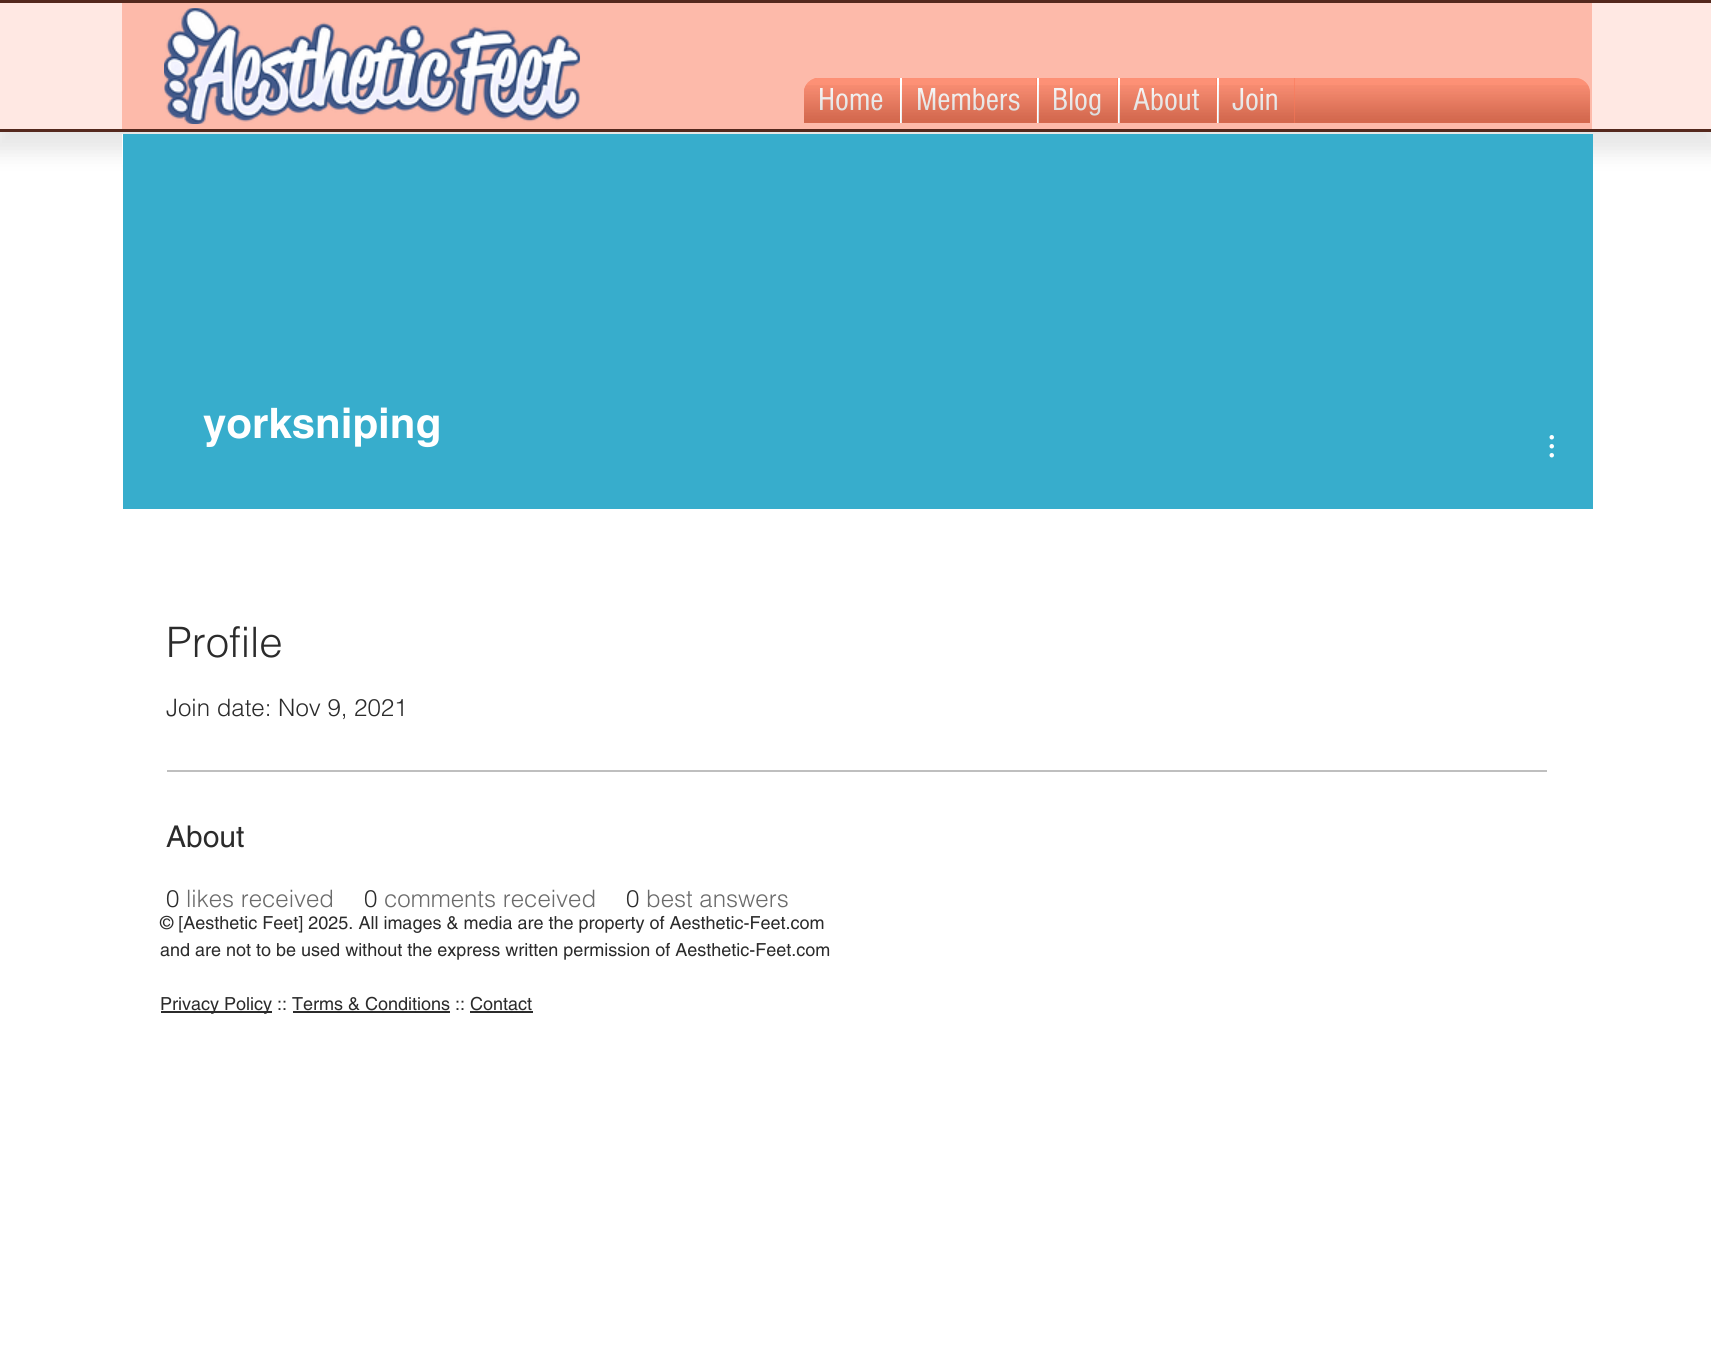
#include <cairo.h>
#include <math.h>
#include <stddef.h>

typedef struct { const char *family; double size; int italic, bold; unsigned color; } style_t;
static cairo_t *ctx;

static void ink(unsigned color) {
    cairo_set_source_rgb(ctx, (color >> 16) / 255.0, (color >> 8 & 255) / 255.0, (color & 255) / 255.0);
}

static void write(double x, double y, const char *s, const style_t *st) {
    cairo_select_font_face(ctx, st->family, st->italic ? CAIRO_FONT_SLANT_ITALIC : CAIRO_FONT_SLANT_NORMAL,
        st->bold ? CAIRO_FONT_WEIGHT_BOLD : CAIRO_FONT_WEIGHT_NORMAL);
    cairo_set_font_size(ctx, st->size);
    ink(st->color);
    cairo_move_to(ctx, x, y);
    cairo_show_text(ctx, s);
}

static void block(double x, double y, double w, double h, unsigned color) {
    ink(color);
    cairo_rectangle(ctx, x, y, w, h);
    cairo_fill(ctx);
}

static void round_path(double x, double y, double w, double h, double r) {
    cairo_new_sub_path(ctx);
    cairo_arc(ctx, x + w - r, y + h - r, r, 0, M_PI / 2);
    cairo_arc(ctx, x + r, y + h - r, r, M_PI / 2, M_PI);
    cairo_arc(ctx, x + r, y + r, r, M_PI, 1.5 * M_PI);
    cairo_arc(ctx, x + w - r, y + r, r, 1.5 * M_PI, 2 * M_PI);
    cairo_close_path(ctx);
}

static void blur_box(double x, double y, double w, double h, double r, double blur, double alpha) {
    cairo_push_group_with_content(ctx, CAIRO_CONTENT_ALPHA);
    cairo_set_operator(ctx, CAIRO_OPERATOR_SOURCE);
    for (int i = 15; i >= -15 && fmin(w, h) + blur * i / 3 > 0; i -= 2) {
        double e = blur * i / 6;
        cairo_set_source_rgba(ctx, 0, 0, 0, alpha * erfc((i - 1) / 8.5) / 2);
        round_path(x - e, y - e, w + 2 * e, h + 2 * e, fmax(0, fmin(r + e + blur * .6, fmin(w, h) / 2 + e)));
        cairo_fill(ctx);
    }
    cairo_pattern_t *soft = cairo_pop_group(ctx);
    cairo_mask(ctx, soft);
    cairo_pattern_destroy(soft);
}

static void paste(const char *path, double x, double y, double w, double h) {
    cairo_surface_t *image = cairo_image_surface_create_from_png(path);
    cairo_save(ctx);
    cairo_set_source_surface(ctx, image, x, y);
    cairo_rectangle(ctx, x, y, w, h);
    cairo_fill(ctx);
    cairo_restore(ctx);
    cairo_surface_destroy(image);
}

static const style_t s1 = {"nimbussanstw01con", 33, 0, 0, 0xffffff};
static const style_t s2 = {"helvetica", 42, 0, 1, 0xffffff};
static const style_t s3 = {"helvetica Light", 42, 0, 0, 0x2b2b2b};
static const style_t s4 = {"helvetica Light", 24, 0, 0, 0x2b2b2b};
static const style_t s5 = {"helvetica", 30, 0, 0, 0x2b2b2b};
static const style_t s6 = {"helvetica Light", 24, 0, 0, 0x6b6b6b};
static const style_t s7 = {"helvetica", 18, 0, 0, 0x2b2b2b};

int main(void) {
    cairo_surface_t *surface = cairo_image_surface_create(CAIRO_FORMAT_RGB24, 1711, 1360);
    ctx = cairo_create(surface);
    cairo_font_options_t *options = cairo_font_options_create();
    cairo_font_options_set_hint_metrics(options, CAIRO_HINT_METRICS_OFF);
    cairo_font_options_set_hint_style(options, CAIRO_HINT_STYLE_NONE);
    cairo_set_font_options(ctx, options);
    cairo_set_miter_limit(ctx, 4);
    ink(0xffffff);
    cairo_paint(ctx);
    ink(0x000000);
    blur_box(-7, 5, 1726, 147, 0, 10.5, 0.1);
    block(0, 3, 1711, 126, 0xffe8e3);
    block(0, 0, 1711, 3, 0x54281d);
    block(0, 129, 1711, 3, 0x54281d);
    block(122, 3, 1470, 126, 0xfdbaaa);
    paste("pic1.png", 164, 8, 417, 117);
    ink(0xfc7756);
    cairo_new_path(ctx);
    cairo_move_to(ctx, 818, 78);
    cairo_line_to(ctx, 1576, 78);
    cairo_curve_to(ctx, 1583.5, 78, 1590, 84.5, 1590, 92);
    cairo_line_to(ctx, 1590, 123);
    cairo_line_to(ctx, 804, 123);
    cairo_line_to(ctx, 804, 92);
    cairo_curve_to(ctx, 804, 84.5, 810.5, 78, 818, 78);
    cairo_close_path(ctx);
    cairo_fill(ctx);
    paste("pic2.png", 804, 78, 786, 45);
    paste("pic3.png", 804, 85, 786, 38);
    cairo_new_path(ctx);
    cairo_move_to(ctx, 818, 78);
    cairo_line_to(ctx, 900, 78);
    cairo_line_to(ctx, 900, 123);
    cairo_line_to(ctx, 804, 123);
    cairo_line_to(ctx, 804, 92);
    cairo_curve_to(ctx, 804, 84.5, 810.5, 78, 818, 78);
    cairo_close_path(ctx);
    cairo_fill(ctx);
    write(818, 110, "Home", &s1);
    paste("pic4.png", 804, 78, 96, 45);
    paste("pic5.png", 804, 85, 96, 38);
    block(902, 78, 135, 45, 0xfc7756);
    block(900, 78, 2, 45, 0xffffff);
    write(916, 110, "Members", &s1);
    paste("pic6.png", 902, 78, 135, 45);
    paste("pic7.png", 901, 85, 136, 38);
    block(1039, 78, 79, 45, 0xfc7756);
    block(1037, 78, 2, 45, 0xffffff);
    write(1052, 110, "Blog", &s1);
    paste("pic8.png", 1039, 78, 79, 45);
    paste("pic9.png", 1038, 85, 80, 38);
    block(1120, 78, 97, 45, 0xfc7756);
    block(1118, 78, 2, 45, 0xffffff);
    write(1133, 110, "About", &s1);
    paste("pic10.png", 1120, 78, 97, 45);
    paste("pic11.png", 1119, 85, 98, 38);
    block(1219, 78, 76, 45, 0xfc7756);
    block(1217, 78, 2, 45, 0xffffff);
    write(1232, 110, "Join", &s1);
    paste("pic12.png", 1219, 78, 76, 45);
    paste("pic13.png", 1218, 85, 77, 38);
    block(122, 134, 1470, 31, 0xffffff);
    block(123, 134, 1470, 375, 0x37adcc);
    write(203, 438, "yorksniping", &s2);
    paste("pic14.png", 1549, 435, 5, 23);
    write(166, 657, "Profile", &s3);
    write(166, 716, "Join date: Nov 9, 2021", &s4);
    block(167, 770, 1380, 2, 0xbfbfbf);
    write(166, 847, "About", &s5);
    write(166, 907, "0", &s4);
    write(186, 907, "likes received", &s6);
    write(364, 907, "0", &s4);
    write(384, 907, "comments received", &s6);
    write(626, 907, "0", &s4);
    write(646, 907, "best answers", &s6);
    write(160, 929, "© [Aesthetic Feet] 2025. All images & media are the property of Aesthetic-Feet.com", &s7);
    write(160, 956, "and are not to be used without the express written permission of Aesthetic-Feet.com", &s7);
    block(161, 1011, 111, 2, 0x2b2b2b);
    write(160, 1010, "Privacy Policy :: Terms & Conditions :: Contact", &s7);
    block(293, 1011, 157, 2, 0x2b2b2b);
    block(470, 1011, 63, 2, 0x2b2b2b);
    cairo_surface_write_to_png(surface, "screenshot.png");
    cairo_font_options_destroy(options);
    cairo_destroy(ctx);
    cairo_surface_destroy(surface);
    return 0;
}
